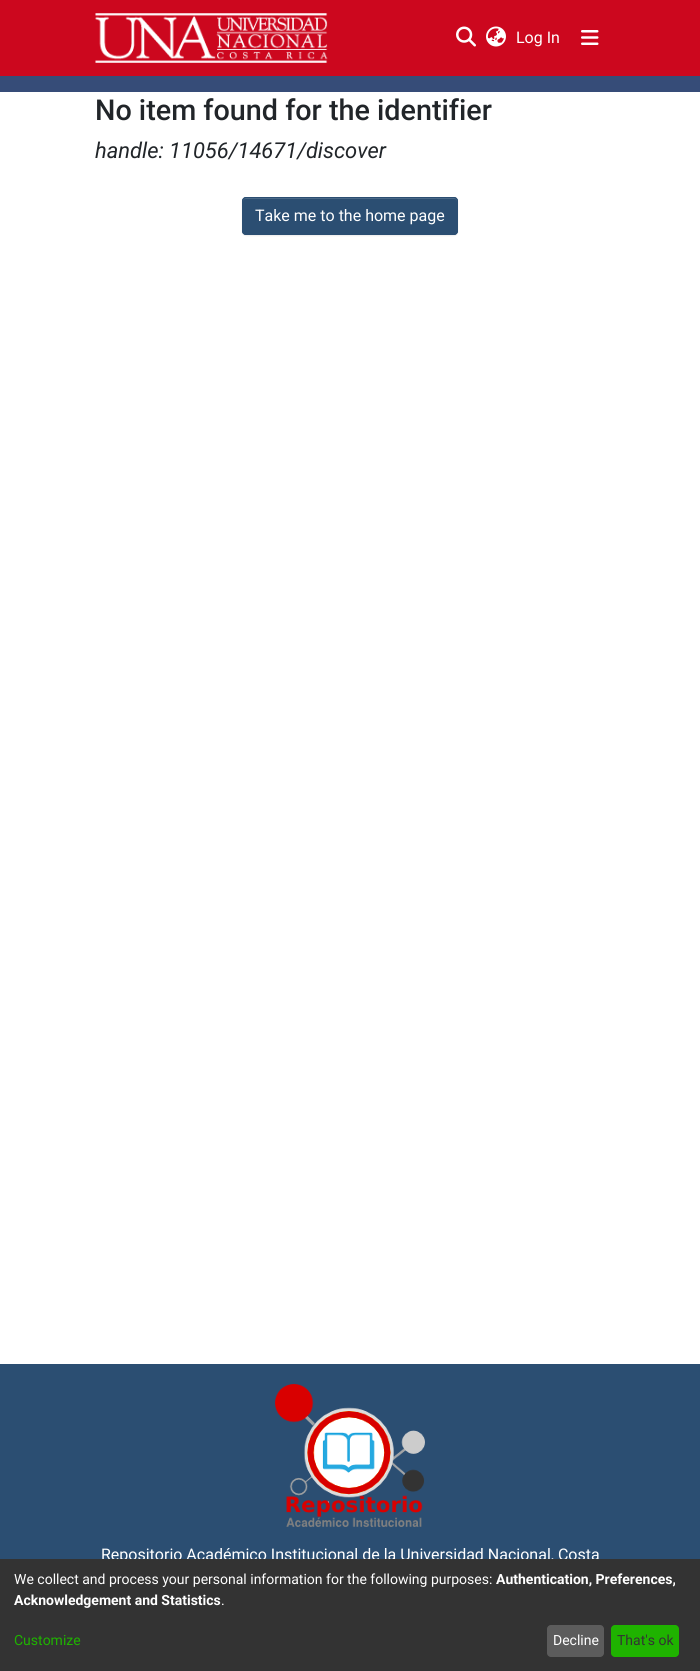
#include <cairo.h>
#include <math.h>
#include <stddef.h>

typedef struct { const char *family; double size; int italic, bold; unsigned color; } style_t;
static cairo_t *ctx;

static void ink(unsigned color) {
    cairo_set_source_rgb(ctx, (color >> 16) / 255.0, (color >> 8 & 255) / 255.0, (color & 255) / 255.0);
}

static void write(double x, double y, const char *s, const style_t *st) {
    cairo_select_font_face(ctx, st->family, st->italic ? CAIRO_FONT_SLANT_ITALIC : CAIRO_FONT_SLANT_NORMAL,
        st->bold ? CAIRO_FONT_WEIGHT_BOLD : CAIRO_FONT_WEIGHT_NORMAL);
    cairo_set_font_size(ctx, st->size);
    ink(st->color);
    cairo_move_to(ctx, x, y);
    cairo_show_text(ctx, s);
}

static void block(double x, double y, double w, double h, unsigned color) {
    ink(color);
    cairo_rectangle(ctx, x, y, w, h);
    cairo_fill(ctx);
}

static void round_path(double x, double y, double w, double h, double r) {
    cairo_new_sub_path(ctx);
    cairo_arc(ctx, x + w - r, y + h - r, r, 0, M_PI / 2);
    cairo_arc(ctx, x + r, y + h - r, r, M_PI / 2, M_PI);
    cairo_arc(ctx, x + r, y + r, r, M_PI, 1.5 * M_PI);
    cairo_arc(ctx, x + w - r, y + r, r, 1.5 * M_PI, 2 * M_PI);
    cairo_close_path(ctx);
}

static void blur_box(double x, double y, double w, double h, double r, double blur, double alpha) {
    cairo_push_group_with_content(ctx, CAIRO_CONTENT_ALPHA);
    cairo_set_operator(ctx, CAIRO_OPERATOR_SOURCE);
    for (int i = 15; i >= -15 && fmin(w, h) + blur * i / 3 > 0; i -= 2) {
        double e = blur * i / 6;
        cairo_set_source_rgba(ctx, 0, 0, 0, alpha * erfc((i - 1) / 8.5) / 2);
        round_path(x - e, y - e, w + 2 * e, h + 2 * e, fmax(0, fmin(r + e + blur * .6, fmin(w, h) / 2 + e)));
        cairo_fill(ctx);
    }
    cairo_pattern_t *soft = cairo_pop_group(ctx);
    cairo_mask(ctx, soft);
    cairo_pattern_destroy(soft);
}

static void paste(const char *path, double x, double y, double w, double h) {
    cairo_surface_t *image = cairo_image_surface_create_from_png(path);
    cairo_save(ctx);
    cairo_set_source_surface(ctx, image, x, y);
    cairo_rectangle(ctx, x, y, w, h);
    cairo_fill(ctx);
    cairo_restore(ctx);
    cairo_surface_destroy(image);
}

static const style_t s1 = {"Roboto", 16, 0, 0, 0xffffff};
static const style_t s2 = {"Roboto Medium", 28.75, 0, 0, 0x212529};
static const style_t s3 = {"Roboto", 21.9, 1, 0, 0x212529};
static const style_t s4 = {"Roboto", 14, 0, 0, 0xffffff};
static const style_t s5 = {"Roboto", 14, 0, 1, 0xffffff};
static const style_t s6 = {"Roboto", 14, 0, 0, 0x1fb300};
static const style_t s7 = {"Roboto", 14, 0, 0, 0x333333};

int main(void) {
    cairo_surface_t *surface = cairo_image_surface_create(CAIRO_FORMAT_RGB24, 700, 1671);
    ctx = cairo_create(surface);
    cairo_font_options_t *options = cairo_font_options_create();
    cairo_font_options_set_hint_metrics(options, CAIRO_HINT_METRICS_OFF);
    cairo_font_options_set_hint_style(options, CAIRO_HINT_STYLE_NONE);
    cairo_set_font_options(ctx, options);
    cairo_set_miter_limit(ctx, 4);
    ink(0xffffff);
    cairo_paint(ctx);
    block(0, 0, 700, 76, 0xcc071e);
    paste("pic1.png", 95, 13, 233, 50);
    paste("pic2.png", 456, 26, 20, 21);
    paste("pic3.png", 486, 26, 20, 21);
    write(516, 43, "Log In", &s1);
    paste("pic4.png", 581, 30, 18, 15);
    block(0, 76, 700, 16, 0x364c78);
    write(95, 120, "No item found for the identifier", &s2);
    write(95, 158, "handle: 11056/14671/discover", &s3);
    ink(0x000000);
    blur_box(242, 198, 216, 38, 4, 0.5, 0.07);
    ink(0x2b4e72);
    round_path(242, 197, 216, 38, 4);
    cairo_fill(ctx);
    ink(0x4b6987);
    cairo_new_path(ctx);
    cairo_move_to(ctx, 246, 199);
    cairo_line_to(ctx, 454, 199);
    cairo_curve_to(ctx, 456, 199, 457, 200, 457, 202);
    cairo_line_to(ctx, 457, 201);
    cairo_curve_to(ctx, 457, 199, 456, 198, 454, 198);
    cairo_line_to(ctx, 246, 198);
    cairo_curve_to(ctx, 244, 198, 243, 199, 243, 201);
    cairo_line_to(ctx, 243, 202);
    cairo_curve_to(ctx, 243, 200, 244, 199, 246, 199);
    cairo_close_path(ctx);
    cairo_fill(ctx);
    round_path(242.5, 197.5, 215, 37, 3.5);
    ink(0x2b4e72);
    cairo_set_line_width(ctx, 1);
    cairo_stroke(ctx);
    write(255, 221, "Take me to the home page", &s1);
    block(0, 1364, 700, 195, 0x2b4e72);
    paste("pic5.png", 275, 1384, 150, 143);
    write(101, 1560, "Repositorio Académico Institucional de la Universidad Nacional, Costa", &s1);
    block(0, 1559, 700, 112, 0x333333);
    write(14, 1584, "We collect and process your personal information for the following purposes:", &s4);
    write(496, 1584, "Authentication, Preferences,", &s5);
    write(14, 1605, "Acknowledgement and Statistics", &s5);
    write(221, 1605, ".", &s4);
    write(14, 1645, "Customize", &s6);
    ink(0x5c5c5c);
    round_path(547, 1625, 57, 32, 4);
    cairo_fill(ctx);
    write(553, 1645, "Decline", &s4);
    ink(0x1fb300);
    round_path(611, 1625, 68, 32, 4);
    cairo_fill(ctx);
    write(617, 1645, "That's ok", &s7);
    cairo_surface_write_to_png(surface, "screenshot.png");
    cairo_font_options_destroy(options);
    cairo_destroy(ctx);
    cairo_surface_destroy(surface);
    return 0;
}
